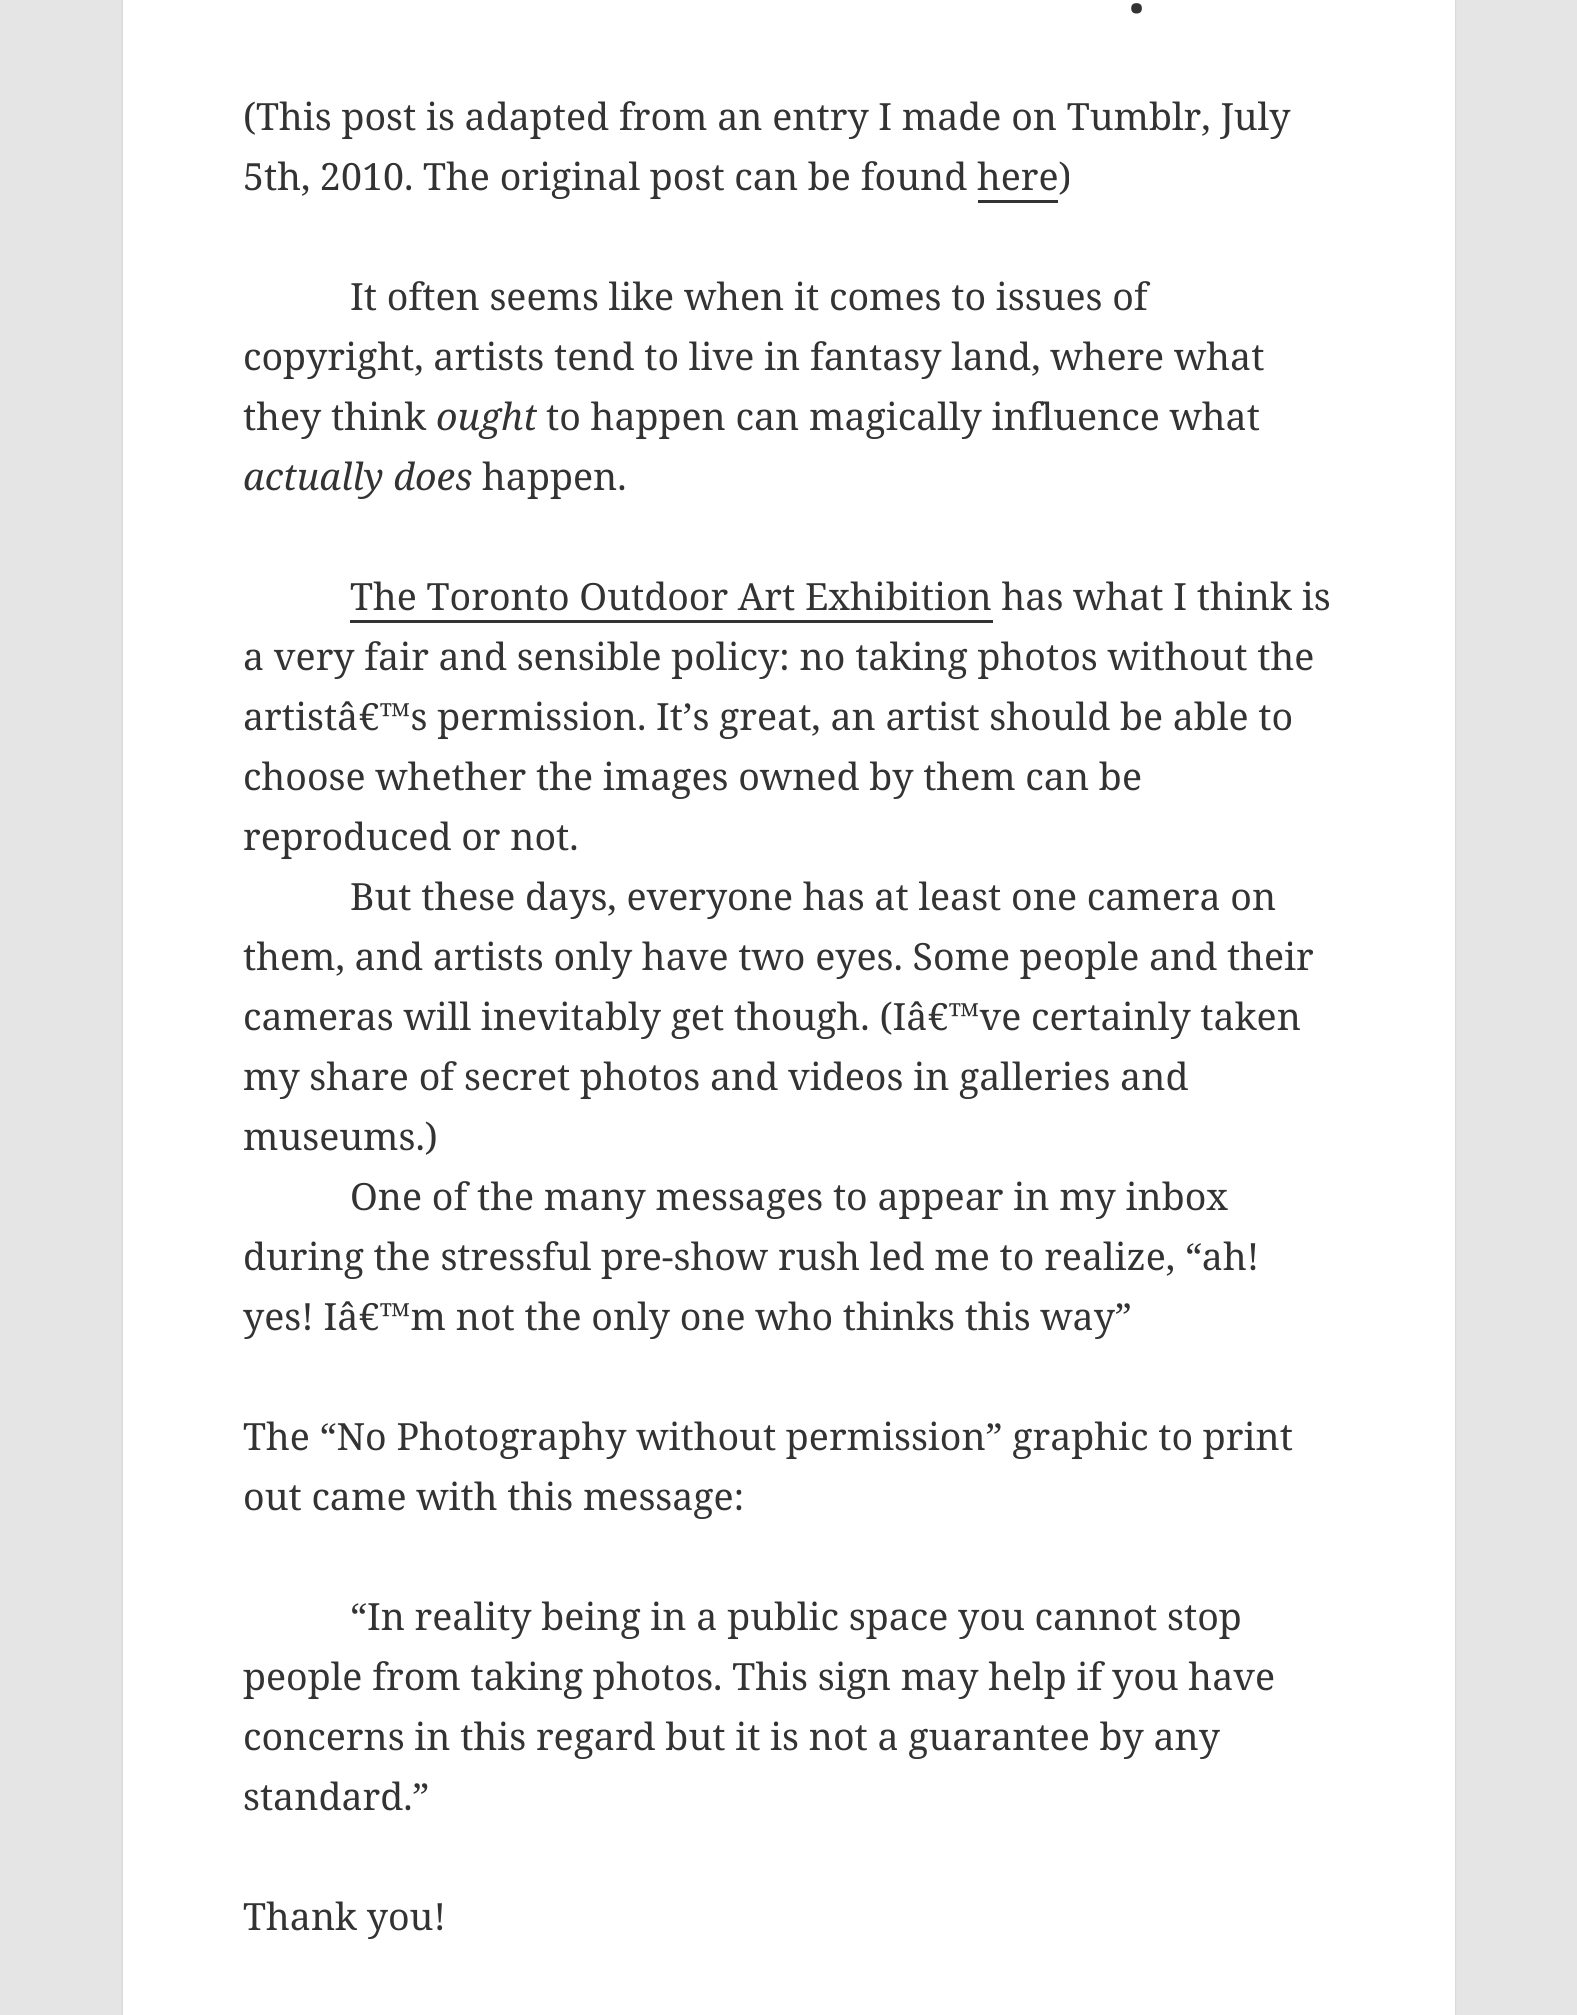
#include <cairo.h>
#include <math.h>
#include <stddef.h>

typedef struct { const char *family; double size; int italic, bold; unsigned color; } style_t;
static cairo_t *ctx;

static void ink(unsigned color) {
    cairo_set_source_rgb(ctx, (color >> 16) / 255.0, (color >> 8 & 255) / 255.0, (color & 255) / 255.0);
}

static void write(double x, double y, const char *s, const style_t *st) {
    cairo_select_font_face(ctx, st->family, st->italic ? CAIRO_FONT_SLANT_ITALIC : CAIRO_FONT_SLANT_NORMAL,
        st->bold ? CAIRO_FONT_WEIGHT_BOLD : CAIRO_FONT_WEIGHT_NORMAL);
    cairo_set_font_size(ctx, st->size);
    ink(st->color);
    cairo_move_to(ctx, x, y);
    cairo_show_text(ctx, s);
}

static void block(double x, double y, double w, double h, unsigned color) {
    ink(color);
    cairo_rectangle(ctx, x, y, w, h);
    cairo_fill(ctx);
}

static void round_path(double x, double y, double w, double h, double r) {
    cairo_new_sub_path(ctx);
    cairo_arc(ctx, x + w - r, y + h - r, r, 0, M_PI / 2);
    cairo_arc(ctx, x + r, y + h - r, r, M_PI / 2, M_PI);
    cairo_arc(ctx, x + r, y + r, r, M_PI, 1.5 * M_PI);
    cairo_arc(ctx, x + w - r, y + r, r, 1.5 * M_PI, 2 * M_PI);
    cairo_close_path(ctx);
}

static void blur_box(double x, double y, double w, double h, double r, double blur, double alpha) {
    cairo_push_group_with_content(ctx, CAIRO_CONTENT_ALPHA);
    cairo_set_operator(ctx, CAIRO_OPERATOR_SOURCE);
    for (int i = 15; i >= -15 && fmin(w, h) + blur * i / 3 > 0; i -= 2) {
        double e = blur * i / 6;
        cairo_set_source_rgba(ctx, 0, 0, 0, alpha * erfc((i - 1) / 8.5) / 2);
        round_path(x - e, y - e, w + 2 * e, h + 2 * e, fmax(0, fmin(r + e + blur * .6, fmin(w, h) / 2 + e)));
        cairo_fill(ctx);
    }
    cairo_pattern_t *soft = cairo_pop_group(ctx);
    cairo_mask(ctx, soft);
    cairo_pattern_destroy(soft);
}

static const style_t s1 = {"Noto Serif", 65, 0, 1, 0x333333};
static const style_t s2 = {"Noto Serif", 37.5, 0, 0, 0x333333};
static const style_t s3 = {"Noto Serif", 37.5, 1, 0, 0x333333};

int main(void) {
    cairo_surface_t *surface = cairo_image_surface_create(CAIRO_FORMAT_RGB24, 1577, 2015);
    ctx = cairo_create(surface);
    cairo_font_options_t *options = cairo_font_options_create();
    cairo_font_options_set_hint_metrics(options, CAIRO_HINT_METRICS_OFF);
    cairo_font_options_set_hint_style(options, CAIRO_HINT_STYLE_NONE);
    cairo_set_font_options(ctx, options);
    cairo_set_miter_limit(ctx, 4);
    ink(0xe5e5e5);
    cairo_paint(ctx);
    ink(0x000000);
    blur_box(123, -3, 1332, 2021, 0, 1, 0.15);
    block(123, 0, 1332, 2015, 0xffffff);
    write(1127, 13, ".", &s1);
    write(243, 130, "(This post is adapted from an entry I made on Tumblr, July", &s2);
    write(243, 190, "5th, 2010. The original post can be found here)", &s2);
    block(978, 200, 80, 3, 0x333333);
    write(350, 310, "It often seems like when it comes to issues of", &s2);
    write(243, 370, "copyright, artists tend to live in fantasy land, where what", &s2);
    write(243, 430, "they think", &s2);
    write(436, 430, "ought", &s3);
    write(546, 430, "to happen can magically influence what", &s2);
    write(243, 490, "actually does", &s3);
    write(482, 490, "happen.", &s2);
    write(350, 610, "The Toronto Outdoor Art Exhibition has what I think is", &s2);
    block(350, 620, 643, 3, 0x333333);
    write(243, 670, "a very fair and sensible policy: no taking photos without the", &s2);
    write(243, 730, "artistâ€™s permission. It’s great, an artist should be able to", &s2);
    write(243, 790, "choose whether the images owned by them can be", &s2);
    write(243, 850, "reproduced or not.", &s2);
    write(350, 910, "But these days, everyone has at least one camera on", &s2);
    write(243, 970, "them, and artists only have two eyes. Some people and their", &s2);
    write(243, 1030, "cameras will inevitably get though. (Iâ€™ve certainly taken", &s2);
    write(243, 1090, "my share of secret photos and videos in galleries and", &s2);
    write(243, 1150, "museums.)", &s2);
    write(350, 1210, "One of the many messages to appear in my inbox", &s2);
    write(243, 1270, "during the stressful pre-show rush led me to realize, “ah!", &s2);
    write(243, 1330, "yes! Iâ€™m not the only one who thinks this way”", &s2);
    write(243, 1450, "The “No Photography without permission” graphic to print", &s2);
    write(243, 1510, "out came with this message:", &s2);
    write(350, 1630, "“In reality being in a public space you cannot stop", &s2);
    write(243, 1690, "people from taking photos. This sign may help if you have", &s2);
    write(243, 1750, "concerns in this regard but it is not a guarantee by any", &s2);
    write(243, 1810, "standard.”", &s2);
    write(243, 1930, "Thank you!", &s2);
    cairo_surface_write_to_png(surface, "screenshot.png");
    cairo_font_options_destroy(options);
    cairo_destroy(ctx);
    cairo_surface_destroy(surface);
    return 0;
}
